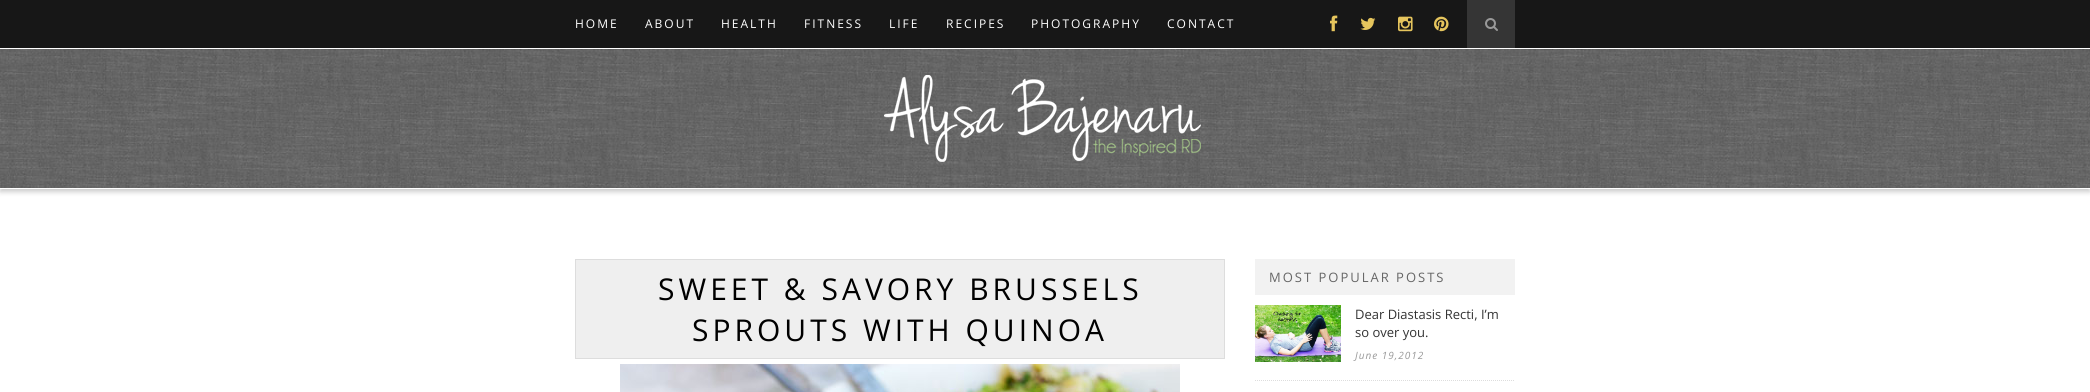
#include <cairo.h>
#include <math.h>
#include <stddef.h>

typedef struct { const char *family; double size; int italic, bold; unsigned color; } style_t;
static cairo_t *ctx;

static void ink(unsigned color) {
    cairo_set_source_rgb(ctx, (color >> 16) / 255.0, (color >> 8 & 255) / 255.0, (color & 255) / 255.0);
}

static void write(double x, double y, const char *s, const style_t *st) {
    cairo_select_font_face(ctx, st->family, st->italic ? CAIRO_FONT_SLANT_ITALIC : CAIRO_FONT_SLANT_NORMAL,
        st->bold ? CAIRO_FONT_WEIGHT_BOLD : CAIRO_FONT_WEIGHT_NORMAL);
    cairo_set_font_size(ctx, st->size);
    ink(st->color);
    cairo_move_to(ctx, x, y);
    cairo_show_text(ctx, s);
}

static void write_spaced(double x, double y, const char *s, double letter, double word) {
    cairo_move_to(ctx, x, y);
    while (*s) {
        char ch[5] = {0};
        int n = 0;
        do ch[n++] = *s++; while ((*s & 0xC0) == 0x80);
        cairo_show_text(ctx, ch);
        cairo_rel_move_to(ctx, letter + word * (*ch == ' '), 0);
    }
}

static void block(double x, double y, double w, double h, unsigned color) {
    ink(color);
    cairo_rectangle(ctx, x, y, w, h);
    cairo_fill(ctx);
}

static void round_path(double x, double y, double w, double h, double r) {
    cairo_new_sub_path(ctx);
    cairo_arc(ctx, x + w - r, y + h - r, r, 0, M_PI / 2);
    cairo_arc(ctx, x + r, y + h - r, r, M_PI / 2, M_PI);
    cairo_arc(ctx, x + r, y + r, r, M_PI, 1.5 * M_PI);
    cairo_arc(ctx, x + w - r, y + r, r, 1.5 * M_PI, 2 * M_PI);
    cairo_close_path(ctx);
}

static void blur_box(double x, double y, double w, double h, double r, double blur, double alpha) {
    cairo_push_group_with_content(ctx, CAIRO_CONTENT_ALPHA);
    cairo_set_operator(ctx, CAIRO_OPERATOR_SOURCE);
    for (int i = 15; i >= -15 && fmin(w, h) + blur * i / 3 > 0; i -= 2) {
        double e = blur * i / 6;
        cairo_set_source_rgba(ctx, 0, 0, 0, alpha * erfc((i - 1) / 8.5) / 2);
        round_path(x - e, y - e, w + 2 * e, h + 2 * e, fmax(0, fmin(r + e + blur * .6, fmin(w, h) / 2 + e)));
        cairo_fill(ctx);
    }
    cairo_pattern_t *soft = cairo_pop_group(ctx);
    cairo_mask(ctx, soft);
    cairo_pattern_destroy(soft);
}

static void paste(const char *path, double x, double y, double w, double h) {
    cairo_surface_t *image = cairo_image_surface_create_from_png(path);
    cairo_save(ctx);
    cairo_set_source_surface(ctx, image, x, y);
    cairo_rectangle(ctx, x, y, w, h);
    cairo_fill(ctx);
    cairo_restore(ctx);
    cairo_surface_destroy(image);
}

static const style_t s1 = {"Open Sans", 13, 0, 0, 0x333333};

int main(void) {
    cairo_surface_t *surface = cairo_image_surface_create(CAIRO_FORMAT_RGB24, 2090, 392);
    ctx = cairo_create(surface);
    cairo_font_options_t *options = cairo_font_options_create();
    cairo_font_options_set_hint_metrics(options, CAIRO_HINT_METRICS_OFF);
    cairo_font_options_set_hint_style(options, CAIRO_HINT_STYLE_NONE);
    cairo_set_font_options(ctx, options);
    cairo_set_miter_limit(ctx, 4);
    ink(0xffffff);
    cairo_paint(ctx);
    ink(0x000000);
    blur_box(0, 3, 2090, 189, 0, 2.5, 0.2);
    paste("pic1.png", 0, 49, 2090, 139);
    block(0, 188, 2090, 1, 0xffffff);
    paste("pic2.png", 884, 75, 317, 87);
    block(0, 0, 2090, 48, 0x171717);
    block(0, 48, 2090, 1, 0xffffff);
    cairo_select_font_face(ctx, "Open Sans", CAIRO_FONT_SLANT_NORMAL, CAIRO_FONT_WEIGHT_NORMAL);
    cairo_set_font_size(ctx, 12);
    write_spaced(575, 28, "HOME", 2, 0);
    write_spaced(645, 28, "ABOUT", 2, 0);
    write_spaced(721, 28, "HEALTH", 2, 0);
    write_spaced(804, 28, "FITNESS", 2, 0);
    write_spaced(889, 28, "LIFE", 2, 0);
    write_spaced(946, 28, "RECIPES", 2, 0);
    write_spaced(1031, 28, "PHOTOGRAPHY", 2, 0);
    write_spaced(1167, 28, "CONTACT", 2, 0);
    paste("pic3.png", 1330, 15, 8, 17);
    paste("pic4.png", 1360, 17, 16, 13);
    paste("pic5.png", 1398, 16, 15, 16);
    paste("pic6.png", 1434, 16, 15, 16);
    block(1467, 0, 48, 48, 0x353535);
    paste("pic7.png", 1485, 18, 13, 13);
    ink(0xefefef);
    cairo_rectangle(ctx, 575.5, 259.5, 649, 99);
    cairo_fill_preserve(ctx);
    ink(0xdddddd);
    cairo_set_line_width(ctx, 1);
    cairo_stroke(ctx);
    cairo_set_font_size(ctx, 30);
    ink(0x000000);
    write_spaced(658, 300, "SWEET & SAVORY BRUSSELS", 4, 0);
    write_spaced(692, 341, "SPROUTS WITH QUINOA", 4, 0);
    paste("pic8.png", 620, 364, 560, 28);
    block(1255, 259, 260, 36, 0xf2f2f2);
    cairo_set_font_size(ctx, 13);
    ink(0x666666);
    write_spaced(1269, 282, "MOST POPULAR POSTS", 2, 0);
    cairo_new_path(ctx);
    cairo_move_to(ctx, 1255, 380.5);
    cairo_line_to(ctx, 1515, 380.5);
    ink(0xdddddd);
    cairo_set_dash(ctx, (double[]){1, 1}, 2, 0);
    cairo_stroke(ctx);
    paste("pic9.png", 1255, 305, 86, 57);
    write(1355, 319, "Dear Diastasis Recti, I’m", &s1);
    write(1355, 337, "so over you.", &s1);
    cairo_select_font_face(ctx, "Open Sans", CAIRO_FONT_SLANT_ITALIC, CAIRO_FONT_WEIGHT_NORMAL);
    cairo_set_font_size(ctx, 10);
    ink(0x999999);
    write_spaced(1355, 359, "June 19,2012", 1, 0);
    cairo_surface_write_to_png(surface, "screenshot.png");
    cairo_font_options_destroy(options);
    cairo_destroy(ctx);
    cairo_surface_destroy(surface);
    return 0;
}
